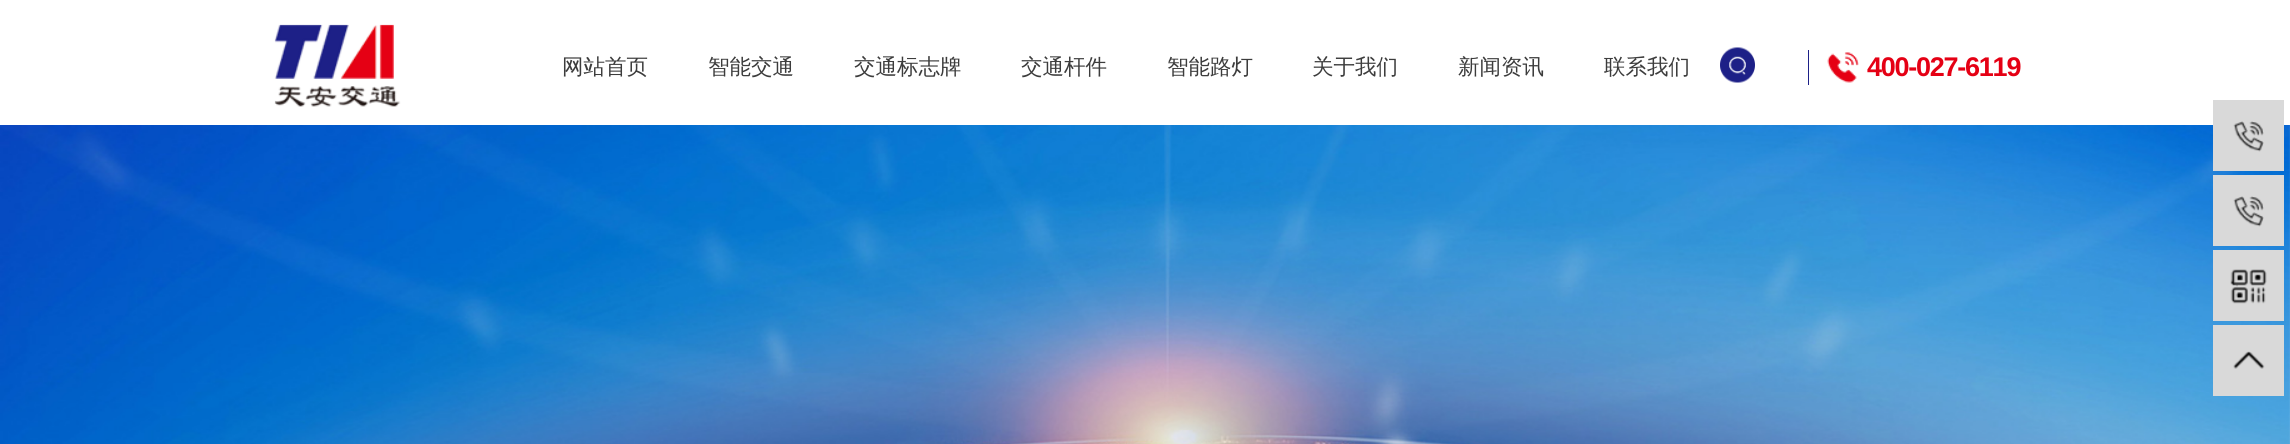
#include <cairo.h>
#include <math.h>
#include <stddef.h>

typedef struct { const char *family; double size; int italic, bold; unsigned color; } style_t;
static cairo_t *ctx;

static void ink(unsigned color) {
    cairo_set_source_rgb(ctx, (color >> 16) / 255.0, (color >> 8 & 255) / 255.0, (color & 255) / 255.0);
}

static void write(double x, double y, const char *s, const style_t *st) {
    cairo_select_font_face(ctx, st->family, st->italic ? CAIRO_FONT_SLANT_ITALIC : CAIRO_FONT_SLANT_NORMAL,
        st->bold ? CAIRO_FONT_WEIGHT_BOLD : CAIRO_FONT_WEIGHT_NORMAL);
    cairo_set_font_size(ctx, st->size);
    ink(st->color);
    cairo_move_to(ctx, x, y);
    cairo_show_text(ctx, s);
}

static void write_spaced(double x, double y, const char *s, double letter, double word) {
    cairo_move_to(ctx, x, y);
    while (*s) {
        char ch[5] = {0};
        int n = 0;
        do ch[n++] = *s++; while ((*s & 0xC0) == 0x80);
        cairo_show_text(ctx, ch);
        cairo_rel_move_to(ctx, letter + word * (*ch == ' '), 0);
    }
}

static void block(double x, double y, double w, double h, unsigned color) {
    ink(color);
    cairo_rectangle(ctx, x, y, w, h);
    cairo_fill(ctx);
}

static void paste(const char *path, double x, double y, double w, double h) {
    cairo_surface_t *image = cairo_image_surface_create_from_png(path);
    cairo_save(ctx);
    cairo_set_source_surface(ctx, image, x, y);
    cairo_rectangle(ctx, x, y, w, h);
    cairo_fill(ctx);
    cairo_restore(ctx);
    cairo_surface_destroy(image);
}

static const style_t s1 = {"WenQuanYi Zen Hei Medium", 21.5, 0, 0, 0x3c3c3c};

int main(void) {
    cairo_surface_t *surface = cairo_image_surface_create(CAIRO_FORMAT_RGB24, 2290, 444);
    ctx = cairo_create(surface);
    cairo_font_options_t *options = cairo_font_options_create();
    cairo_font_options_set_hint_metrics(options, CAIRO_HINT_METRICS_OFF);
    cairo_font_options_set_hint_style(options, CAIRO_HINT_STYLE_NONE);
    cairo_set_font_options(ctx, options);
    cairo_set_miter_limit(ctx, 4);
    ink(0xffffff);
    cairo_paint(ctx);
    paste("pic1.png", 274, 24, 127, 83);
    write(562, 74, "网站首页", &s1);
    write(708, 74, "智能交通", &s1);
    write(854, 74, "交通标志牌", &s1);
    write(1021, 74, "交通杆件", &s1);
    write(1167, 74, "智能路灯", &s1);
    write(1312, 74, "关于我们", &s1);
    write(1458, 74, "新闻资讯", &s1);
    write(1604, 74, "联系我们", &s1);
    paste("pic2.png", 1720, 47, 35, 36);
    block(1808, 50, 1, 35, 0x1d2087);
    paste("pic3.png", 1827, 52, 32, 31);
    cairo_select_font_face(ctx, "Liberation Sans", CAIRO_FONT_SLANT_NORMAL, CAIRO_FONT_WEIGHT_BOLD);
    cairo_set_font_size(ctx, 27);
    ink(0xe50014);
    write_spaced(1867, 76, "400-027-6119", -1.25, 0);
    paste("pic7.png", 0, 125, 2290, 319);
    block(2213, 100, 71, 71, 0xd9d9d9);
    paste("pic4.png", 2233, 121, 31, 31);
    block(2213, 175, 71, 71, 0xd9d9d9);
    paste("pic4.png", 2233, 196, 31, 31);
    block(2213, 250, 71, 71, 0xd9d9d9);
    paste("pic5.png", 2230, 269, 37, 35);
    block(2213, 325, 71, 71, 0xd9d9d9);
    paste("pic6.png", 2233, 351, 32, 18);
    cairo_surface_write_to_png(surface, "screenshot.png");
    cairo_font_options_destroy(options);
    cairo_destroy(ctx);
    cairo_surface_destroy(surface);
    return 0;
}
